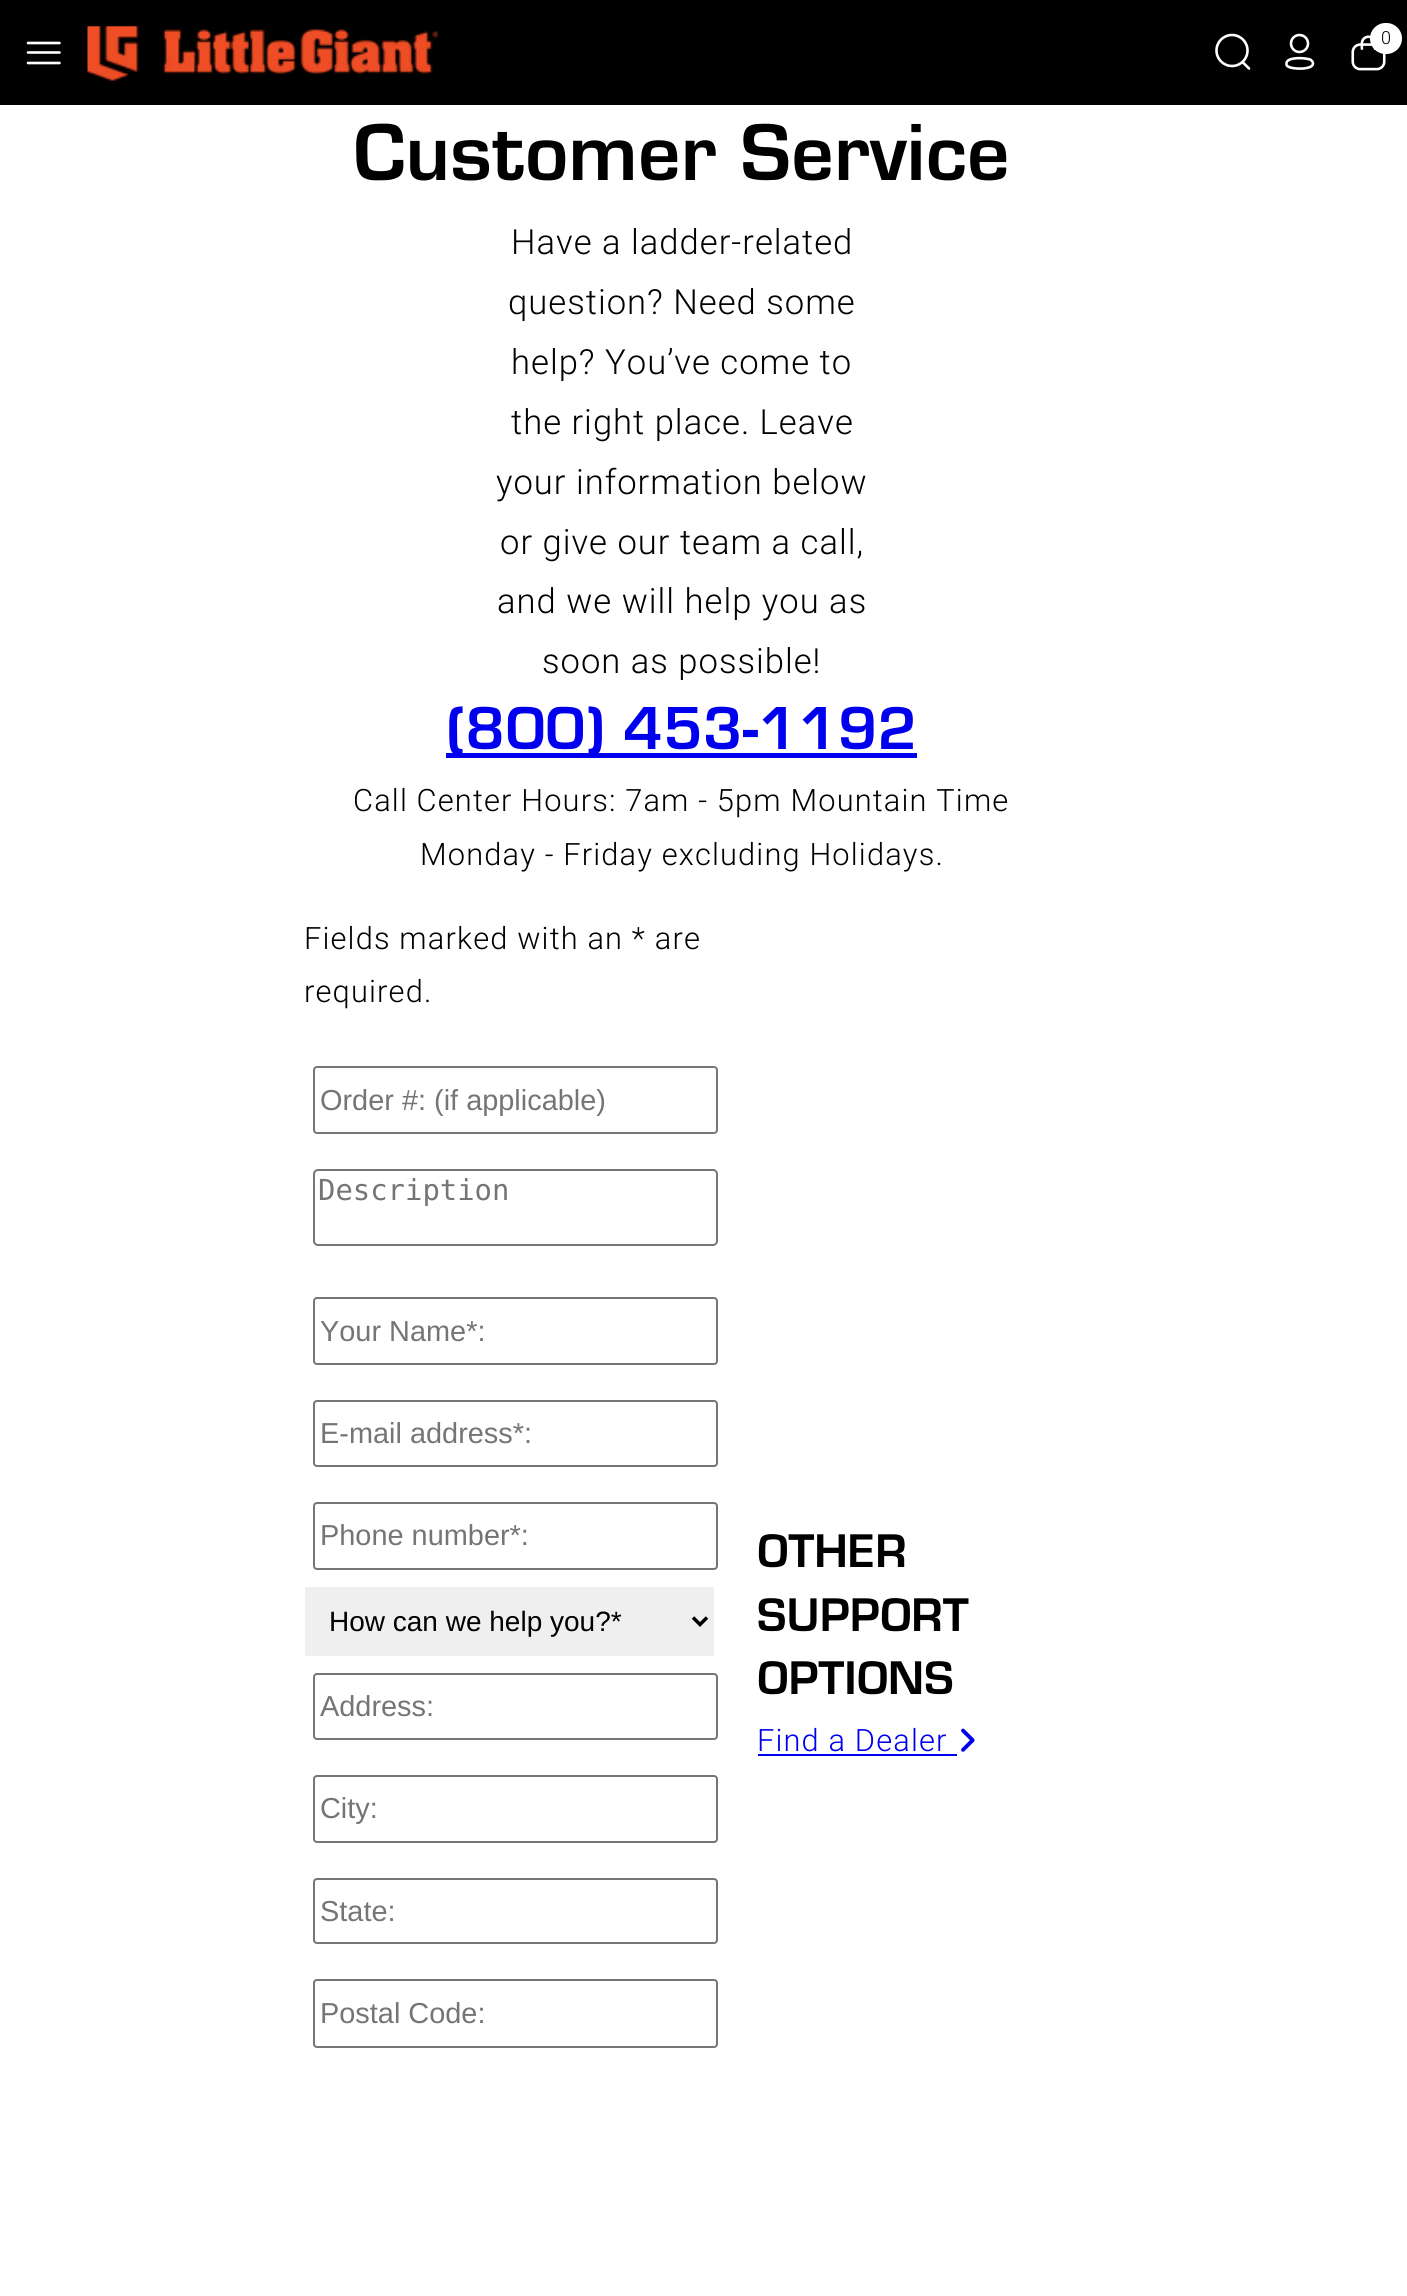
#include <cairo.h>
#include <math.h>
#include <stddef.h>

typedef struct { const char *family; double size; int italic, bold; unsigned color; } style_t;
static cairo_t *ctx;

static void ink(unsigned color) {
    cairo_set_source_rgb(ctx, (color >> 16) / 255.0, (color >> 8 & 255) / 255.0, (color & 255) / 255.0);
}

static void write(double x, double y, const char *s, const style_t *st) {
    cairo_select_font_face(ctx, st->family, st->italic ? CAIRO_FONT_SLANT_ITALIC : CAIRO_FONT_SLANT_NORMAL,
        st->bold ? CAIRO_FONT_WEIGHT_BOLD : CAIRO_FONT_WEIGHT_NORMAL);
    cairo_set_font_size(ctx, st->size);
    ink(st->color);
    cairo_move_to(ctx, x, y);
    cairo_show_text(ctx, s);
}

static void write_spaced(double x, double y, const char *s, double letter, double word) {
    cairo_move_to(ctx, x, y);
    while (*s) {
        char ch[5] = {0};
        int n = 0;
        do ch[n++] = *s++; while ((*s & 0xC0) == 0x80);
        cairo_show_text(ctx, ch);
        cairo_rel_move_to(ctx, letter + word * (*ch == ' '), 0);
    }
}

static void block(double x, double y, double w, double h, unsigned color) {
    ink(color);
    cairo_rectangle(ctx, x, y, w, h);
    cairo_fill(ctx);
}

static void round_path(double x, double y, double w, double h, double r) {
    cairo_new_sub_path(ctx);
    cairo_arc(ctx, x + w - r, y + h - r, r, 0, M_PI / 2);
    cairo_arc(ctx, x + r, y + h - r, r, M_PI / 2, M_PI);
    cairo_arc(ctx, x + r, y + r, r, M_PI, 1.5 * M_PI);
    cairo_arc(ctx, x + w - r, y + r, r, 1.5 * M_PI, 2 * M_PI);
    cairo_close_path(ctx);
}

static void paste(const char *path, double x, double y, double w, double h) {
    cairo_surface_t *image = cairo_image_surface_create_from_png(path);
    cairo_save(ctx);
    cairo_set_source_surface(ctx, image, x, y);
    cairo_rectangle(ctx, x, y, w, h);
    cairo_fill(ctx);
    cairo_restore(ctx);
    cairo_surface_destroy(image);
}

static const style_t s1 = {"Liberation Sans", 28.9, 0, 0, 0x757575};
static const style_t s2 = {"DejaVu Sans Mono", 28.9, 0, 0, 0x757575};
static const style_t s3 = {"Liberation Sans", 28, 0, 0, 0x000000};

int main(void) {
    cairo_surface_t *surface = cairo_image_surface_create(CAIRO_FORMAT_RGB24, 1407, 2296);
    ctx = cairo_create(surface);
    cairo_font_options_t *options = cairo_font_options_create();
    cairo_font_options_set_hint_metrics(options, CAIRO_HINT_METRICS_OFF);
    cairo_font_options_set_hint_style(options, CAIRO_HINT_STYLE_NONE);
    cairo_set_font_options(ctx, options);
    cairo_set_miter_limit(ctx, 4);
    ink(0xffffff);
    cairo_paint(ctx);
    block(0, 0, 1407, 105, 0x000000);
    paste("pic1.png", 87, 26, 351, 55);
    cairo_arc(ctx, 1232, 50.5, 15.5, 0, 2 * M_PI);
    ink(0xffffff);
    cairo_set_line_width(ctx, 2.6);
    cairo_stroke(ctx);
    cairo_new_path(ctx);
    cairo_move_to(ctx, 1243, 62.5);
    cairo_line_to(ctx, 1249, 68.5);
    cairo_set_line_cap(ctx, CAIRO_LINE_CAP_ROUND);
    cairo_set_line_join(ctx, CAIRO_LINE_JOIN_ROUND);
    cairo_stroke(ctx);
    cairo_arc(ctx, 1299.5, 43.5, 8.5, 0, 2 * M_PI);
    cairo_set_line_cap(ctx, CAIRO_LINE_CAP_BUTT);
    cairo_set_line_join(ctx, CAIRO_LINE_JOIN_MITER);
    cairo_stroke(ctx);
    cairo_new_path(ctx);
    cairo_move_to(ctx, 1286.5, 63.5);
    cairo_curve_to(ctx, 1286, 56.5, 1307, 57.5, 1311, 60);
    cairo_curve_to(ctx, 1312, 61, 1313, 62, 1313, 63.5);
    cairo_curve_to(ctx, 1313, 70, 1292.5, 69.5, 1288, 66.5);
    cairo_curve_to(ctx, 1287, 66, 1286, 64.5, 1286.5, 63.5);
    cairo_close_path(ctx);
    cairo_set_line_cap(ctx, CAIRO_LINE_CAP_ROUND);
    cairo_set_line_join(ctx, CAIRO_LINE_JOIN_ROUND);
    cairo_stroke(ctx);
    paste("pic2.png", 1351, 35, 35, 36);
    round_path(1370, 23, 32, 31, 15.5);
    cairo_fill(ctx);
    cairo_select_font_face(ctx, "Roboto Light", CAIRO_FONT_SLANT_NORMAL, CAIRO_FONT_WEIGHT_NORMAL);
    cairo_set_font_size(ctx, 18);
    ink(0x000000);
    write_spaced(1381, 44, "0", 1.15, 0);
    cairo_new_path(ctx);
    cairo_move_to(ctx, 28, 43);
    cairo_line_to(ctx, 59.5, 43);
    cairo_move_to(ctx, 59.5, 52.5);
    cairo_line_to(ctx, 28, 52.5);
    cairo_move_to(ctx, 59.5, 63);
    cairo_line_to(ctx, 28, 63);
    ink(0xffffff);
    cairo_stroke(ctx);
    cairo_select_font_face(ctx, "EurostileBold", CAIRO_FONT_SLANT_NORMAL, CAIRO_FONT_WEIGHT_BOLD);
    cairo_set_font_size(ctx, 84);
    ink(0x000000);
    write_spaced(353, 180, "Customer Service", 0.5, 0);
    cairo_select_font_face(ctx, "Roboto Light", CAIRO_FONT_SLANT_NORMAL, CAIRO_FONT_WEIGHT_NORMAL);
    cairo_set_font_size(ctx, 34.6);
    write_spaced(511, 254, "Have a ladder-related", 1, 0);
    write_spaced(508, 314, "question? Need some", 1, 0);
    write_spaced(511, 374, "help? You’ve come to", 1, 0);
    write_spaced(511, 434, "the right place. Leave", 1, 0);
    write_spaced(496, 494, "your information below", 1, 0);
    write_spaced(500, 554, "or give our team a call,", 1, 0);
    write_spaced(497, 613, "and we will help you as", 1, 0);
    write_spaced(542, 673, "soon as possible!", 1, 0);
    block(446, 753, 471, 5, 0x0000ee);
    cairo_select_font_face(ctx, "EurostileBold", CAIRO_FONT_SLANT_NORMAL, CAIRO_FONT_WEIGHT_BOLD);
    cairo_set_font_size(ctx, 63);
    write_spaced(446, 749, "(800) 453-1192", 0.4, 0);
    cairo_select_font_face(ctx, "Roboto Light", CAIRO_FONT_SLANT_NORMAL, CAIRO_FONT_WEIGHT_NORMAL);
    cairo_set_font_size(ctx, 30.8);
    ink(0x000000);
    write_spaced(353, 811, "Call Center Hours: 7am - 5pm Mountain Time", 1.15, 0);
    write_spaced(420, 865, "Monday - Friday excluding Holidays.", 1.15, 0);
    write_spaced(304, 949, "Fields marked with an * are", 1.15, 0);
    write_spaced(304, 1002, "required.", 1.15, 0);
    round_path(314, 1067, 403, 66, 3);
    ink(0x767676);
    cairo_set_line_width(ctx, 2);
    cairo_set_line_cap(ctx, CAIRO_LINE_CAP_BUTT);
    cairo_set_line_join(ctx, CAIRO_LINE_JOIN_MITER);
    cairo_stroke(ctx);
    write(320, 1110, "Order #: (if applicable)", &s1);
    round_path(314, 1170, 403, 75, 4);
    ink(0x767676);
    cairo_stroke(ctx);
    write(318, 1200, "Description", &s2);
    round_path(314, 1298, 403, 66, 3);
    ink(0x767676);
    cairo_stroke(ctx);
    write(320, 1341, "Your Name*:", &s1);
    round_path(314, 1401, 403, 65, 3);
    ink(0x767676);
    cairo_stroke(ctx);
    write(320, 1443, "E-mail address*:", &s1);
    round_path(314, 1503, 403, 66, 3);
    ink(0x767676);
    cairo_stroke(ctx);
    write(320, 1545, "Phone number*:", &s1);
    block(305, 1587, 409, 69, 0xefefef);
    cairo_new_path(ctx);
    cairo_move_to(ctx, 693, 1617.5);
    cairo_line_to(ctx, 700, 1624.5);
    cairo_line_to(ctx, 707, 1617.5);
    ink(0x000000);
    cairo_set_line_width(ctx, 3.5);
    cairo_stroke(ctx);
    write(329, 1631, "How can we help you?*", &s3);
    round_path(314, 1674, 403, 65, 3);
    ink(0x767676);
    cairo_set_line_width(ctx, 2);
    cairo_stroke(ctx);
    write(320, 1716, "Address:", &s1);
    round_path(314, 1776, 403, 66, 3);
    ink(0x767676);
    cairo_stroke(ctx);
    write(320, 1818, "City:", &s1);
    round_path(314, 1879, 403, 64, 3);
    ink(0x767676);
    cairo_stroke(ctx);
    write(320, 1921, "State:", &s1);
    round_path(314, 1980, 403, 67, 3);
    ink(0x767676);
    cairo_stroke(ctx);
    write(320, 2023, "Postal Code:", &s1);
    cairo_select_font_face(ctx, "EurostileBold", CAIRO_FONT_SLANT_NORMAL, CAIRO_FONT_WEIGHT_BOLD);
    cairo_set_font_size(ctx, 49);
    ink(0x000000);
    write_spaced(757, 1567, "OTHER", 0.25, 0);
    write_spaced(757, 1631, "SUPPORT", 0.25, 0);
    write_spaced(757, 1694, "OPTIONS", 0.25, 0);
    cairo_select_font_face(ctx, "Roboto Light", CAIRO_FONT_SLANT_NORMAL, CAIRO_FONT_WEIGHT_NORMAL);
    cairo_set_font_size(ctx, 30.8);
    ink(0x0000ee);
    write_spaced(757, 1751, "Find a Dealer", 1.15, 0);
    block(758, 1754, 199, 2, 0x0000ee);
    paste("pic3.png", 961, 1728, 14, 24);
    cairo_surface_write_to_png(surface, "screenshot.png");
    cairo_font_options_destroy(options);
    cairo_destroy(ctx);
    cairo_surface_destroy(surface);
    return 0;
}
